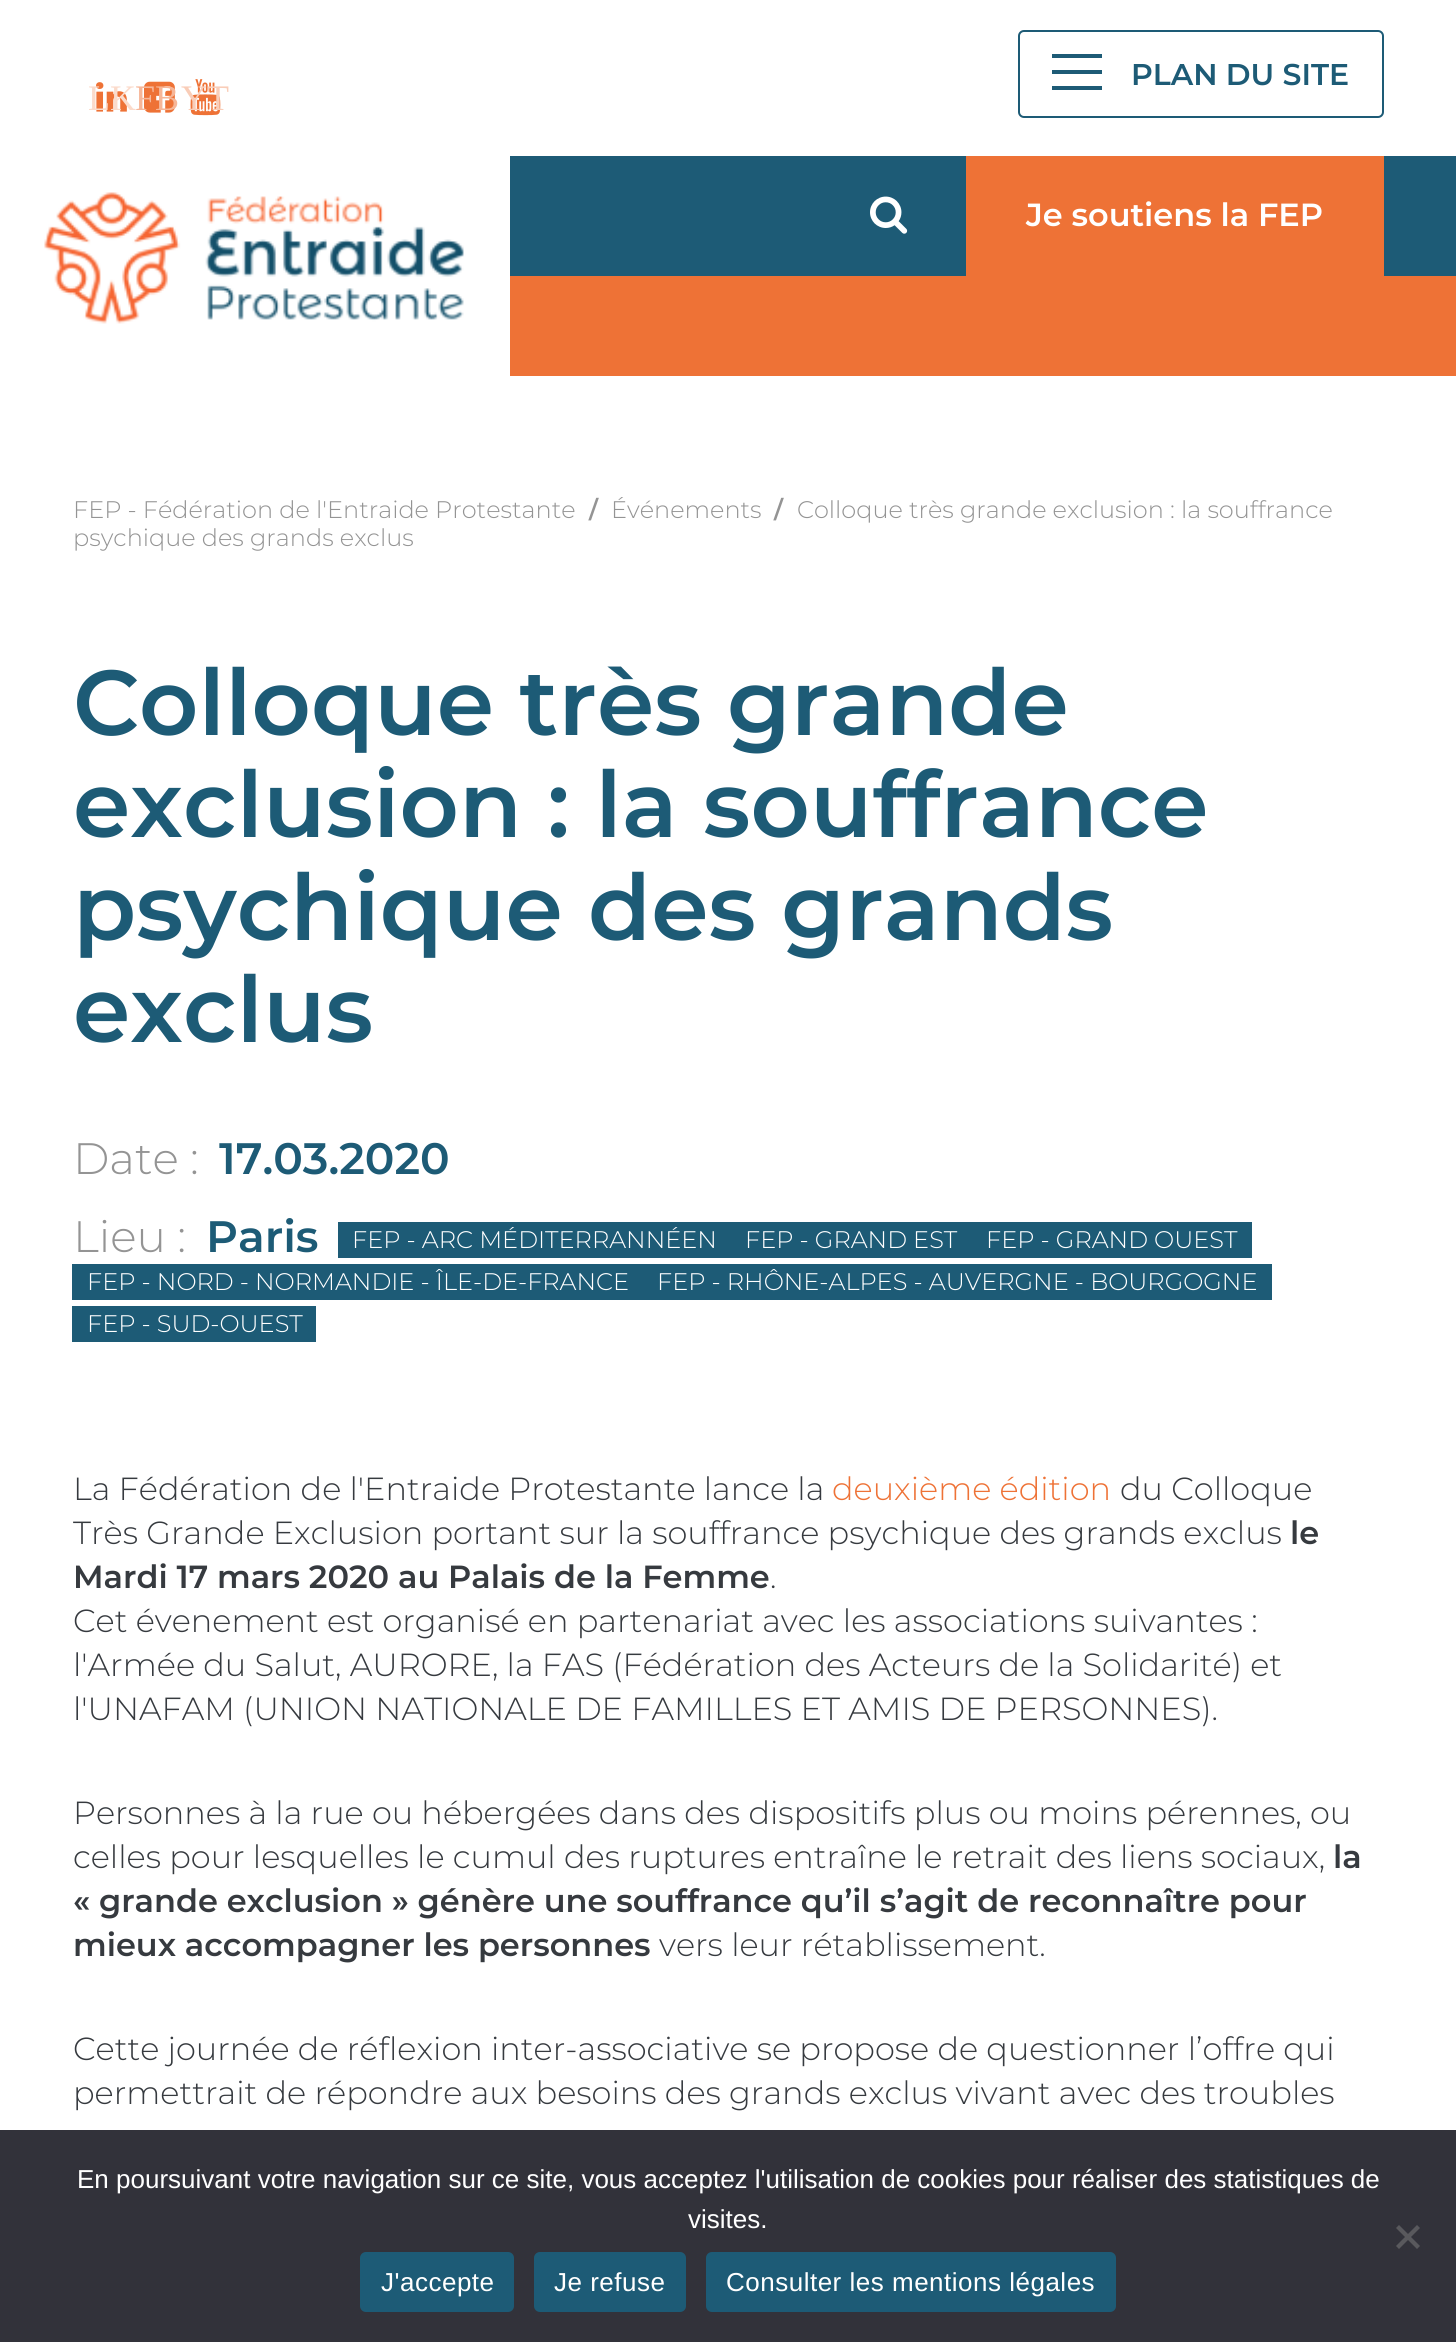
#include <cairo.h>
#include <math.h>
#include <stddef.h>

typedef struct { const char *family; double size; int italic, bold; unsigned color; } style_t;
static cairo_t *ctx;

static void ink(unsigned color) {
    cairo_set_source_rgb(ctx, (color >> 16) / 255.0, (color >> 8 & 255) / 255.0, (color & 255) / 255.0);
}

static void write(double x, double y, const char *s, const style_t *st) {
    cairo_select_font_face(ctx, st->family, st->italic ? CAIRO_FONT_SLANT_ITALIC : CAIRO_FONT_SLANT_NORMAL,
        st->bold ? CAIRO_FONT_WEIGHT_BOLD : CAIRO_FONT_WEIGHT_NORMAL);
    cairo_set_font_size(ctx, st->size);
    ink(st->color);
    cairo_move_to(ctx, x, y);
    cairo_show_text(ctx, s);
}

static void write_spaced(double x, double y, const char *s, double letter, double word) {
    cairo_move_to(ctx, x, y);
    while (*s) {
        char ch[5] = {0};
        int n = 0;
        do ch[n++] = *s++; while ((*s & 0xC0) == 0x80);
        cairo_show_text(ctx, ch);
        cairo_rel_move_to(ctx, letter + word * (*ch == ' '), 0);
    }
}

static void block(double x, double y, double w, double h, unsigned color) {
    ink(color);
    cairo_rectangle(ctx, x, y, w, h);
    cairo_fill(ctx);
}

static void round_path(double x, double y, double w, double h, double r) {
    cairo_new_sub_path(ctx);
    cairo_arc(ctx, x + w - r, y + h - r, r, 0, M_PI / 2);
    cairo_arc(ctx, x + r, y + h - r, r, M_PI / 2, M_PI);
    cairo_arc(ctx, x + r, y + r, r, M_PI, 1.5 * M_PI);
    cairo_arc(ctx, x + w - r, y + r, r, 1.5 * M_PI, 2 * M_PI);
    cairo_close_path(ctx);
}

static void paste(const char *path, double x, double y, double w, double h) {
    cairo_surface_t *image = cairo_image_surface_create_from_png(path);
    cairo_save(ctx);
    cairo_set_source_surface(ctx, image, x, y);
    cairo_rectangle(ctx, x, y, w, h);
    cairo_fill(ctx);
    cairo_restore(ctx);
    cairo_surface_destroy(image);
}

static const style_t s1 = {"Montserrat SemiBold", 30, 0, 0, 0x1d5b76};
static const style_t s2 = {"Liberation Serif", 36, 0, 0, 0xfbdbcb};
static const style_t s3 = {"Liberation Serif", 36, 0, 0, 0xf6b698};
static const style_t s4 = {"Liberation Serif", 36, 0, 0, 0xf9cdb8};
static const style_t s5 = {"Montserrat SemiBold", 32, 0, 0, 0xffffff};
static const style_t s6 = {"Montserrat Light", 24, 0, 0, 0x949494};
static const style_t s7 = {"Montserrat SemiBold", 24, 0, 0, 0x949494};
static const style_t s8 = {"Montserrat SemiBold", 92, 0, 0, 0x1d5b76};
static const style_t s9 = {"Montserrat Light", 44, 0, 0, 0x949494};
static const style_t s10 = {"Montserrat SemiBold", 44, 0, 0, 0x1d5b76};
static const style_t s11 = {"Montserrat Light", 24, 0, 0, 0xffffff};
static const style_t s12 = {"Montserrat Light", 32, 0, 0, 0x363a3f};
static const style_t s13 = {"Montserrat Light", 32, 0, 0, 0xee7236};
static const style_t s14 = {"Montserrat SemiBold", 32, 0, 0, 0x363a3f};
static const style_t s15 = {"Liberation Sans", 26, 0, 0, 0xffffff};

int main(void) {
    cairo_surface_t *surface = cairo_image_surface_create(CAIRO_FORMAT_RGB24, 1456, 2342);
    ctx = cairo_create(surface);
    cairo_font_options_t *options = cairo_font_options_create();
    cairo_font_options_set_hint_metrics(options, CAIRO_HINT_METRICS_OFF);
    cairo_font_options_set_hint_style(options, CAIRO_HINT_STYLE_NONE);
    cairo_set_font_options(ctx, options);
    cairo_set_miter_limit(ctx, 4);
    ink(0xffffff);
    cairo_paint(ctx);
    round_path(1019, 31, 364, 86, 5);
    ink(0x1d5b76);
    cairo_stroke(ctx);
    block(1052, 70, 50, 4, 0x1d5b76);
    block(1052, 54, 50, 4, 0x1d5b76);
    block(1052, 86, 50, 4, 0x1d5b76);
    write(1131, 85, "PLAN DU SITE", &s1);
    paste("pic1.png", 96, 82, 31, 30);
    write(88, 110, "LK", &s2);
    paste("pic2.png", 144, 81, 31, 32);
    write(135, 110, "FB", &s3);
    paste("pic3.png", 190, 79, 31, 37);
    write(181, 110, "YT", &s4);
    paste("pic4.png", 0, 156, 510, 220);
    block(510, 156, 946, 120, 0x1d5b76);
    paste("pic5.png", 870, 196, 38, 38);
    block(966, 156, 418, 120, 0xee7236);
    write(1026, 226, "Je soutiens la FEP", &s5);
    block(510, 276, 946, 100, 0xee7236);
    write(73, 518, "FEP - Fédération de l'Entraide Protestante", &s6);
    write(589, 518, "/", &s7);
    write(611, 518, "Événements", &s6);
    write(774, 518, "/", &s7);
    write(797, 518, "Colloque très grande exclusion : la souffrance", &s6);
    write(73, 546, "psychique des grands exclus", &s6);
    write(73, 735, "Colloque très grande", &s8);
    write(73, 837, "exclusion : la souffrance", &s8);
    write(73, 940, "psychique des grands", &s8);
    write(73, 1042, "exclus", &s8);
    write(73, 1174, "Date :", &s9);
    write(219, 1174, "17.03.2020", &s10);
    write(73, 1252, "Lieu :", &s9);
    write(206, 1252, "Paris", &s10);
    block(338, 1222, 914, 36, 0x1d5b76);
    write(352, 1248, "FEP - ARC MÉDITERRANNÉEN", &s11);
    write(745, 1248, "FEP - GRAND EST", &s11);
    write(986, 1248, "FEP - GRAND OUEST", &s11);
    block(72, 1264, 1200, 36, 0x1d5b76);
    write(87, 1290, "FEP - NORD - NORMANDIE - ÎLE-DE-FRANCE", &s11);
    write(657, 1290, "FEP - RHÔNE-ALPES - AUVERGNE - BOURGOGNE", &s11);
    block(72, 1306, 244, 36, 0x1d5b76);
    write(87, 1332, "FEP - SUD-OUEST", &s11);
    write(73, 1500, "La Fédération de l'Entraide Protestante lance la", &s12);
    write(832, 1500, "deuxième édition", &s13);
    write(1120, 1500, "du Colloque", &s12);
    write(73, 1544, "Très Grande Exclusion portant sur la souffrance psychique des grands exclus", &s12);
    write(1290, 1544, "le", &s14);
    write(73, 1588, "Mardi 17 mars 2020 au Palais de la Femme", &s14);
    write(770, 1588, ".", &s12);
    write(73, 1632, "Cet évenement est organisé en partenariat avec les associations suivantes :", &s12);
    write(73, 1676, "l'Armée du Salut, AURORE, la FAS (Fédération des Acteurs de la Solidarité) et", &s12);
    write(73, 1720, "l'UNAFAM (UNION NATIONALE DE FAMILLES ET AMIS DE PERSONNES).", &s12);
    write(73, 1824, "Personnes à la rue ou hébergées dans des dispositifs plus ou moins pérennes, ou", &s12);
    write(73, 1868, "celles pour lesquelles le cumul des ruptures entraîne le retrait des liens sociaux,", &s12);
    write(1333, 1868, "la", &s14);
    write(73, 1912, "« grande exclusion » génère une souffrance qu’il s’agit de reconnaître pour", &s14);
    write(73, 1956, "mieux accompagner les personnes", &s14);
    write(659, 1956, "vers leur rétablissement.", &s12);
    write(73, 2060, "Cette journée de réflexion inter-associative se propose de questionner l’offre qui", &s12);
    write(73, 2104, "permettrait de répondre aux besoins des grands exclus vivant avec des troubles", &s12);
    block(0, 2130, 1456, 212, 0x32323a);
    write(77, 2188, "En poursuivant votre navigation sur ce site, vous acceptez l'utilisation de cookies pour réaliser des statistiques de", &s15);
    write(688, 2228, "visites.", &s15);
    ink(0x59595d);
    cairo_new_path(ctx);
    cairo_move_to(ctx, 1417, 2225);
    cairo_line_to(ctx, 1420, 2228);
    cairo_line_to(ctx, 1399, 2249);
    cairo_line_to(ctx, 1396, 2246);
    cairo_close_path(ctx);
    cairo_fill(ctx);
    cairo_new_path(ctx);
    cairo_move_to(ctx, 1396, 2228);
    cairo_line_to(ctx, 1399, 2225);
    cairo_line_to(ctx, 1420, 2246);
    cairo_line_to(ctx, 1417, 2249);
    cairo_close_path(ctx);
    cairo_fill(ctx);
    ink(0x1d5b76);
    round_path(360, 2252, 154, 60, 6);
    cairo_fill(ctx);
    ink(0xffffff);
    write_spaced(381, 2291, "J'accepte", 0.5, 0);
    ink(0x1d5b76);
    round_path(534, 2252, 152, 60, 6);
    cairo_fill(ctx);
    ink(0xffffff);
    write_spaced(554, 2291, "Je refuse", 0.5, 0);
    ink(0x1d5b76);
    round_path(706, 2252, 410, 60, 6);
    cairo_fill(ctx);
    ink(0xffffff);
    write_spaced(726, 2291, "Consulter les mentions légales", 0.5, 0);
    cairo_surface_write_to_png(surface, "screenshot.png");
    cairo_font_options_destroy(options);
    cairo_destroy(ctx);
    cairo_surface_destroy(surface);
    return 0;
}
